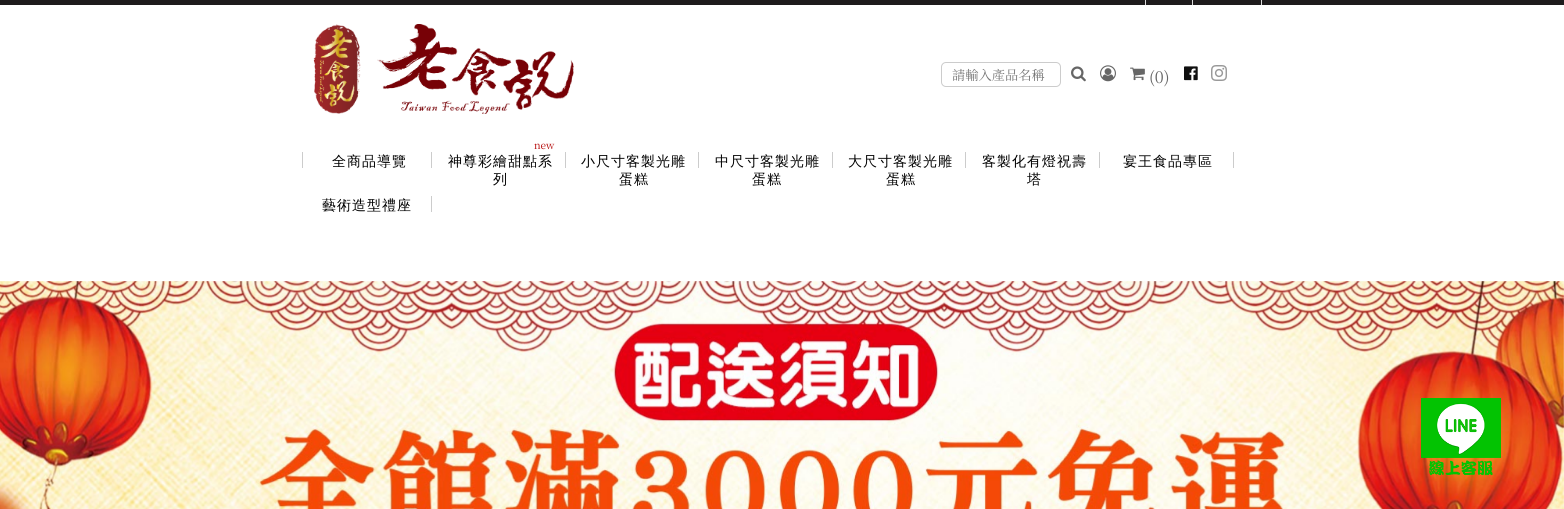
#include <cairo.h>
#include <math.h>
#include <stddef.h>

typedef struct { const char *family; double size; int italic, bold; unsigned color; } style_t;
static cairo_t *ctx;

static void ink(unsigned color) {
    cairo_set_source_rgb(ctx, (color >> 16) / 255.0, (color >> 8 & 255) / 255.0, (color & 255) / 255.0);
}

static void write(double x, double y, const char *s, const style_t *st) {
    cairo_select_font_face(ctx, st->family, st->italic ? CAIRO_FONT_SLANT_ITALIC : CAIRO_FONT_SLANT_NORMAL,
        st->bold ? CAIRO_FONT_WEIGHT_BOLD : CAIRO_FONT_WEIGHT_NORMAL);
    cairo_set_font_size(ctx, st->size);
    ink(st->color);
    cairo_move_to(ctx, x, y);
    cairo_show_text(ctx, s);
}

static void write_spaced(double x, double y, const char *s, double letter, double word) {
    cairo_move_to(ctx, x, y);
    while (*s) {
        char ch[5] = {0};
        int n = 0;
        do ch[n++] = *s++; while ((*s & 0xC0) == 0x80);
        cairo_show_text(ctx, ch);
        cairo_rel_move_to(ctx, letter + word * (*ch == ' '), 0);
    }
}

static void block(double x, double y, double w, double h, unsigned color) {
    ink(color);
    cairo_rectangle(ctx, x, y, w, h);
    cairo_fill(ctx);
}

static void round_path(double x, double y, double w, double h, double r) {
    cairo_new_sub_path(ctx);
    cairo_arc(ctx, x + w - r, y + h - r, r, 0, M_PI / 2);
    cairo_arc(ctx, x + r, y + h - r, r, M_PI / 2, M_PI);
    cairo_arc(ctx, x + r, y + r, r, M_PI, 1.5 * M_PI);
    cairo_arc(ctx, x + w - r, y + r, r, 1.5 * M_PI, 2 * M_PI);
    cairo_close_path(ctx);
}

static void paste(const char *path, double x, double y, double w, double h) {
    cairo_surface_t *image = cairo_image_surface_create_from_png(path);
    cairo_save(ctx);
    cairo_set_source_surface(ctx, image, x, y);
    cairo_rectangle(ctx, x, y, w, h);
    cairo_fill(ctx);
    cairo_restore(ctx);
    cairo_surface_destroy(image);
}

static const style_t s1 = {"Noto Serif CJK SC", 13.25, 0, 0, 0x757575};
static const style_t s2 = {"Noto Serif CJK SC", 16, 0, 0, 0x666666};
static const style_t s3 = {"Noto Serif CJK SC", 10, 0, 0, 0xb30000};

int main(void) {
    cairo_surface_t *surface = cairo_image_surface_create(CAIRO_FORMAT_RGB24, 1564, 509);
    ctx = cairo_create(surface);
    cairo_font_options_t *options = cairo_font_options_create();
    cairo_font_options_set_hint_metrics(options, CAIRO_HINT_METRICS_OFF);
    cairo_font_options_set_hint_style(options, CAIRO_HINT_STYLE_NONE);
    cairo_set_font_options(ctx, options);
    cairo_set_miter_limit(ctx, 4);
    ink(0x1e1b1c);
    cairo_paint(ctx);
    block(1192, 0, 1, 5, 0xdddddd);
    block(1145, 0, 1, 5, 0xdddddd);
    block(1261, 0, 1, 5, 0xdddddd);
    block(0, 5, 1564, 504, 0xffffff);
    paste("pic1.png", 313, 24, 261, 90);
    round_path(941.5, 62.5, 119, 24, 4.5);
    ink(0xcccccc);
    cairo_set_line_width(ctx, 1);
    cairo_stroke(ctx);
    write(952, 80, "請輸入產品名稱", &s1);
    paste("pic2.png", 1071, 66, 15, 16);
    paste("pic3.png", 1100, 65, 16, 17);
    paste("pic4.png", 1130, 67, 15, 14);
    write(1149, 83, "(0)", &s2);
    paste("pic5.png", 1184, 66, 14, 15);
    paste("pic6.png", 1211, 65, 16, 16);
    block(431, 152, 1, 16, 0xcccccc);
    block(302, 152, 1, 16, 0xcccccc);
    cairo_select_font_face(ctx, "WenQuanYi Zen Hei Medium", CAIRO_FONT_SLANT_NORMAL, CAIRO_FONT_WEIGHT_NORMAL);
    cairo_set_font_size(ctx, 14);
    ink(0x000000);
    write_spaced(332, 166, "全商品導覽", 1, 0);
    block(565, 152, 1, 16, 0xcccccc);
    write(534, 149, "new", &s3);
    cairo_select_font_face(ctx, "WenQuanYi Zen Hei Medium", CAIRO_FONT_SLANT_NORMAL, CAIRO_FONT_WEIGHT_NORMAL);
    cairo_set_font_size(ctx, 14);
    ink(0x000000);
    write_spaced(448, 166, "神尊彩繪甜點系", 1, 0);
    write_spaced(493, 184, "列", 1, 0);
    block(698, 152, 1, 16, 0xcccccc);
    ink(0x000000);
    write_spaced(581, 166, "小尺寸客製光雕", 1, 0);
    write_spaced(619, 184, "蛋糕", 1, 0);
    block(832, 152, 1, 16, 0xcccccc);
    ink(0x000000);
    write_spaced(715, 166, "中尺寸客製光雕", 1, 0);
    write_spaced(752, 184, "蛋糕", 1, 0);
    block(965, 152, 1, 16, 0xcccccc);
    ink(0x000000);
    write_spaced(848, 166, "大尺寸客製光雕", 1, 0);
    write_spaced(886, 184, "蛋糕", 1, 0);
    block(1099, 152, 1, 16, 0xcccccc);
    ink(0x000000);
    write_spaced(982, 166, "客製化有燈祝壽", 1, 0);
    write_spaced(1027, 184, "塔", 1, 0);
    block(1233, 152, 1, 16, 0xcccccc);
    ink(0x000000);
    write_spaced(1123, 166, "宴王食品專區", 1, 0);
    block(431, 196, 1, 16, 0xcccccc);
    ink(0x000000);
    write_spaced(322, 210, "藝術造型禮座", 1, 0);
    paste("pic7.png", 0, 281, 1564, 228);
    paste("pic8.png", 1421, 398, 80, 78);
    cairo_surface_write_to_png(surface, "screenshot.png");
    cairo_font_options_destroy(options);
    cairo_destroy(ctx);
    cairo_surface_destroy(surface);
    return 0;
}
